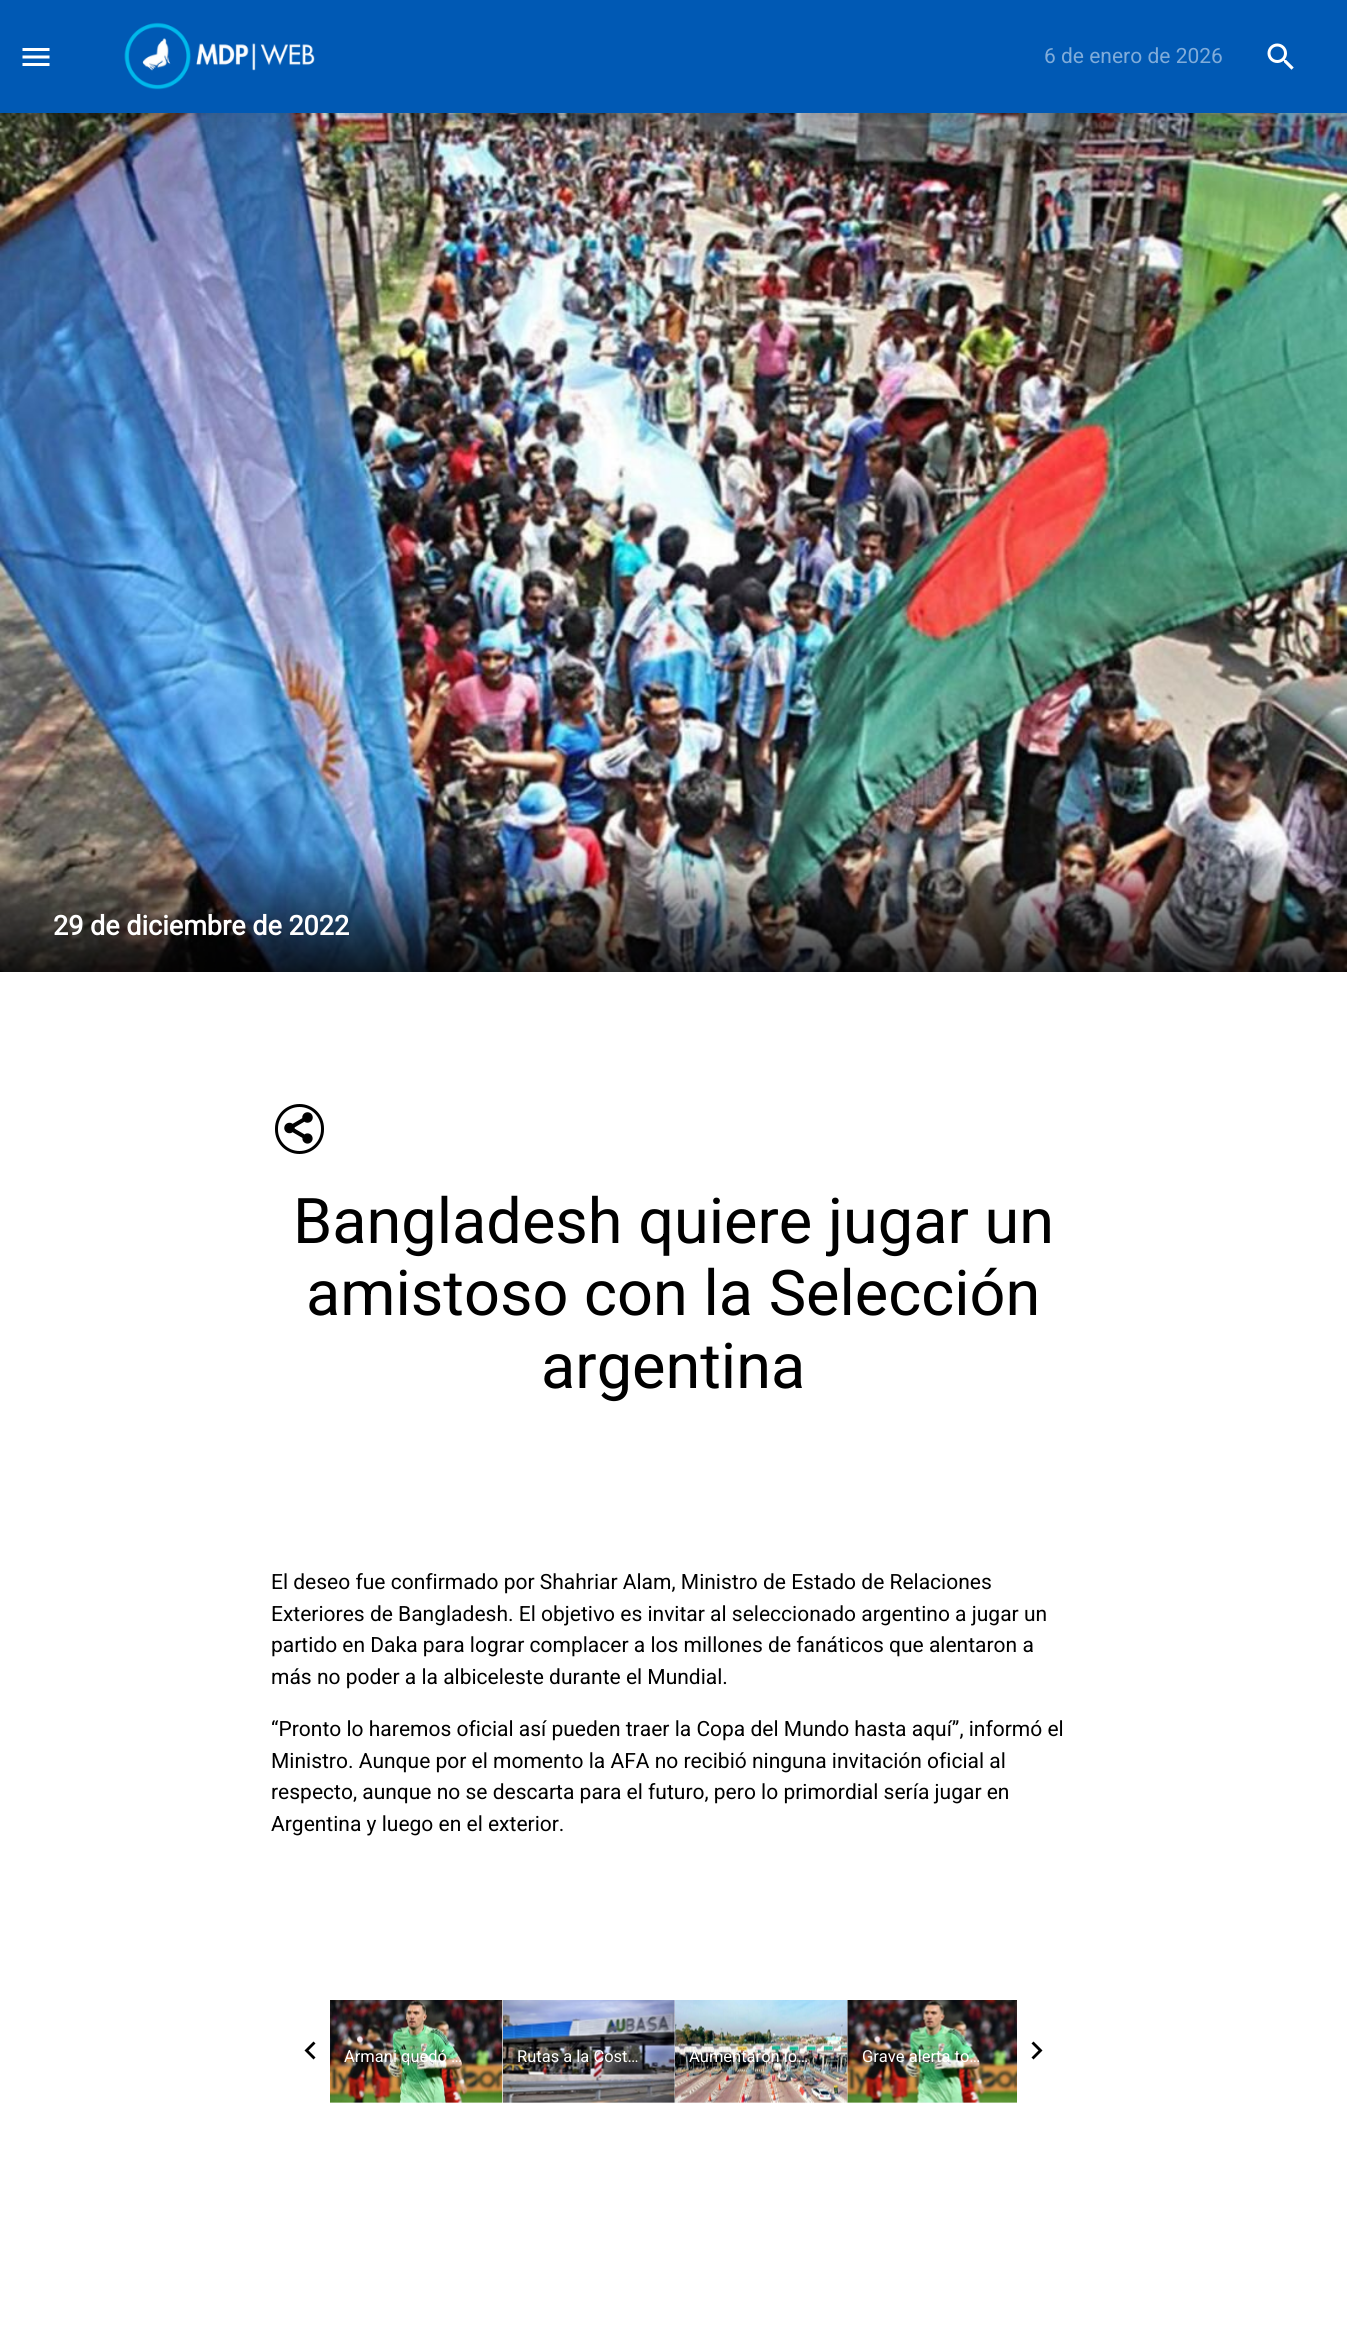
#include <cairo.h>
#include <math.h>
#include <stddef.h>

typedef struct { const char *family; double size; int italic, bold; unsigned color; } style_t;
static cairo_t *ctx;

static void ink(unsigned color) {
    cairo_set_source_rgb(ctx, (color >> 16) / 255.0, (color >> 8 & 255) / 255.0, (color & 255) / 255.0);
}

static void write(double x, double y, const char *s, const style_t *st) {
    cairo_select_font_face(ctx, st->family, st->italic ? CAIRO_FONT_SLANT_ITALIC : CAIRO_FONT_SLANT_NORMAL,
        st->bold ? CAIRO_FONT_WEIGHT_BOLD : CAIRO_FONT_WEIGHT_NORMAL);
    cairo_set_font_size(ctx, st->size);
    ink(st->color);
    cairo_move_to(ctx, x, y);
    cairo_show_text(ctx, s);
}

static void block(double x, double y, double w, double h, unsigned color) {
    ink(color);
    cairo_rectangle(ctx, x, y, w, h);
    cairo_fill(ctx);
}

static void round_path(double x, double y, double w, double h, double r) {
    cairo_new_sub_path(ctx);
    cairo_arc(ctx, x + w - r, y + h - r, r, 0, M_PI / 2);
    cairo_arc(ctx, x + r, y + h - r, r, M_PI / 2, M_PI);
    cairo_arc(ctx, x + r, y + r, r, M_PI, 1.5 * M_PI);
    cairo_arc(ctx, x + w - r, y + r, r, 1.5 * M_PI, 2 * M_PI);
    cairo_close_path(ctx);
}

static void blur_box(double x, double y, double w, double h, double r, double blur, double alpha) {
    cairo_push_group_with_content(ctx, CAIRO_CONTENT_ALPHA);
    cairo_set_operator(ctx, CAIRO_OPERATOR_SOURCE);
    for (int i = 15; i >= -15 && fmin(w, h) + blur * i / 3 > 0; i -= 2) {
        double e = blur * i / 6;
        cairo_set_source_rgba(ctx, 0, 0, 0, alpha * erfc((i - 1) / 8.5) / 2);
        round_path(x - e, y - e, w + 2 * e, h + 2 * e, fmax(0, fmin(r + e + blur * .6, fmin(w, h) / 2 + e)));
        cairo_fill(ctx);
    }
    cairo_pattern_t *soft = cairo_pop_group(ctx);
    cairo_mask(ctx, soft);
    cairo_pattern_destroy(soft);
}

static void paste(const char *path, double x, double y, double w, double h) {
    cairo_surface_t *image = cairo_image_surface_create_from_png(path);
    cairo_save(ctx);
    cairo_set_source_surface(ctx, image, x, y);
    cairo_rectangle(ctx, x, y, w, h);
    cairo_fill(ctx);
    cairo_restore(ctx);
    cairo_surface_destroy(image);
}

static const style_t s1 = {"Heebo", 21, 0, 0, 0x80acda};
static const style_t s2 = {"Heebo", 27, 0, 1, 0xffffff};
static const style_t s3 = {"Heebo", 63, 0, 0, 0x000000};
static const style_t s4 = {"Heebo", 21, 0, 0, 0x000000};
static const style_t s5 = {"Heebo", 16.5, 0, 0, 0xffffff};

int main(void) {
    cairo_surface_t *surface = cairo_image_surface_create(CAIRO_FORMAT_RGB24, 1347, 2340);
    ctx = cairo_create(surface);
    cairo_font_options_t *options = cairo_font_options_create();
    cairo_font_options_set_hint_metrics(options, CAIRO_HINT_METRICS_OFF);
    cairo_font_options_set_hint_style(options, CAIRO_HINT_STYLE_NONE);
    cairo_set_font_options(ctx, options);
    cairo_set_miter_limit(ctx, 4);
    ink(0xffffff);
    cairo_paint(ctx);
    paste("pic4.png", 0, 113, 1347, 859);
    ink(0x000000);
    blur_box(0, 2, 1347, 112, 0, 7.5, 0.1);
    block(0, 0, 1347, 113, 0x0059b4);
    paste("pic1.png", 22, 48, 28, 18);
    paste("pic2.png", 124, 22, 191, 68);
    write(1044, 63, "6 de enero de 2026", &s1);
    paste("pic3.png", 1267, 43, 27, 27);
    write(53, 935, "29 de diciembre de 2022", &s2);
    round_path(276.5, 1105.5, 46, 47, 23);
    ink(0x000000);
    cairo_set_line_width(ctx, 3);
    cairo_stroke(ctx);
    paste("pic5.png", 284, 1112, 29, 32);
    write(293, 1243, "Bangladesh quiere jugar un", &s3);
    write(306, 1315, "amistoso con la Selección", &s3);
    write(541, 1388, "argentina", &s3);
    write(271, 1589, "El deseo fue confirmado por Shahriar Alam, Ministro de Estado de Relaciones", &s4);
    write(271, 1621, "Exteriores de Bangladesh. El objetivo es invitar al seleccionado argentino a jugar un", &s4);
    write(271, 1652, "partido en Daka para lograr complacer a los millones de fanáticos que alentaron a", &s4);
    write(271, 1684, "más no poder a la albiceleste durante el Mundial.", &s4);
    write(271, 1736, "“Pronto lo haremos oficial así pueden traer la Copa del Mundo hasta aquí”, informó el", &s4);
    write(271, 1768, "Ministro. Aunque por el momento la AFA no recibió ninguna invitación oficial al", &s4);
    write(271, 1799, "respecto, aunque no se descarta para el futuro, pero lo primordial sería jugar en", &s4);
    write(271, 1831, "Argentina y luego en el exterior.", &s4);
    cairo_new_path(ctx);
    cairo_move_to(ctx, 315.5, 2043.5);
    cairo_line_to(ctx, 313.5, 2041.5);
    cairo_line_to(ctx, 304.5, 2050.5);
    cairo_line_to(ctx, 313.5, 2059.5);
    cairo_line_to(ctx, 315.5, 2057.5);
    cairo_line_to(ctx, 308.5, 2050.5);
    cairo_close_path(ctx);
    cairo_fill(ctx);
    paste("pic6.png", 330, 2000, 173, 103);
    write(344, 2062, "Armani quedó …", &s5);
    paste("pic7.png", 503, 2000, 173, 103);
    write(517, 2062, "Rutas a la Cost…", &s5);
    paste("pic8.png", 675, 2000, 173, 103);
    write(689, 2062, "Aumentaron lo…", &s5);
    paste("pic9.png", 847, 2000, 170, 103);
    write(862, 2062, "Grave alerta to…", &s5);
    ink(0x000000);
    cairo_new_path(ctx);
    cairo_move_to(ctx, 1033.5, 2041.5);
    cairo_line_to(ctx, 1031.5, 2043.5);
    cairo_line_to(ctx, 1038.5, 2050.5);
    cairo_line_to(ctx, 1031.5, 2057.5);
    cairo_line_to(ctx, 1033.5, 2059.5);
    cairo_line_to(ctx, 1042.5, 2050.5);
    cairo_close_path(ctx);
    cairo_fill(ctx);
    cairo_surface_write_to_png(surface, "screenshot.png");
    cairo_font_options_destroy(options);
    cairo_destroy(ctx);
    cairo_surface_destroy(surface);
    return 0;
}
